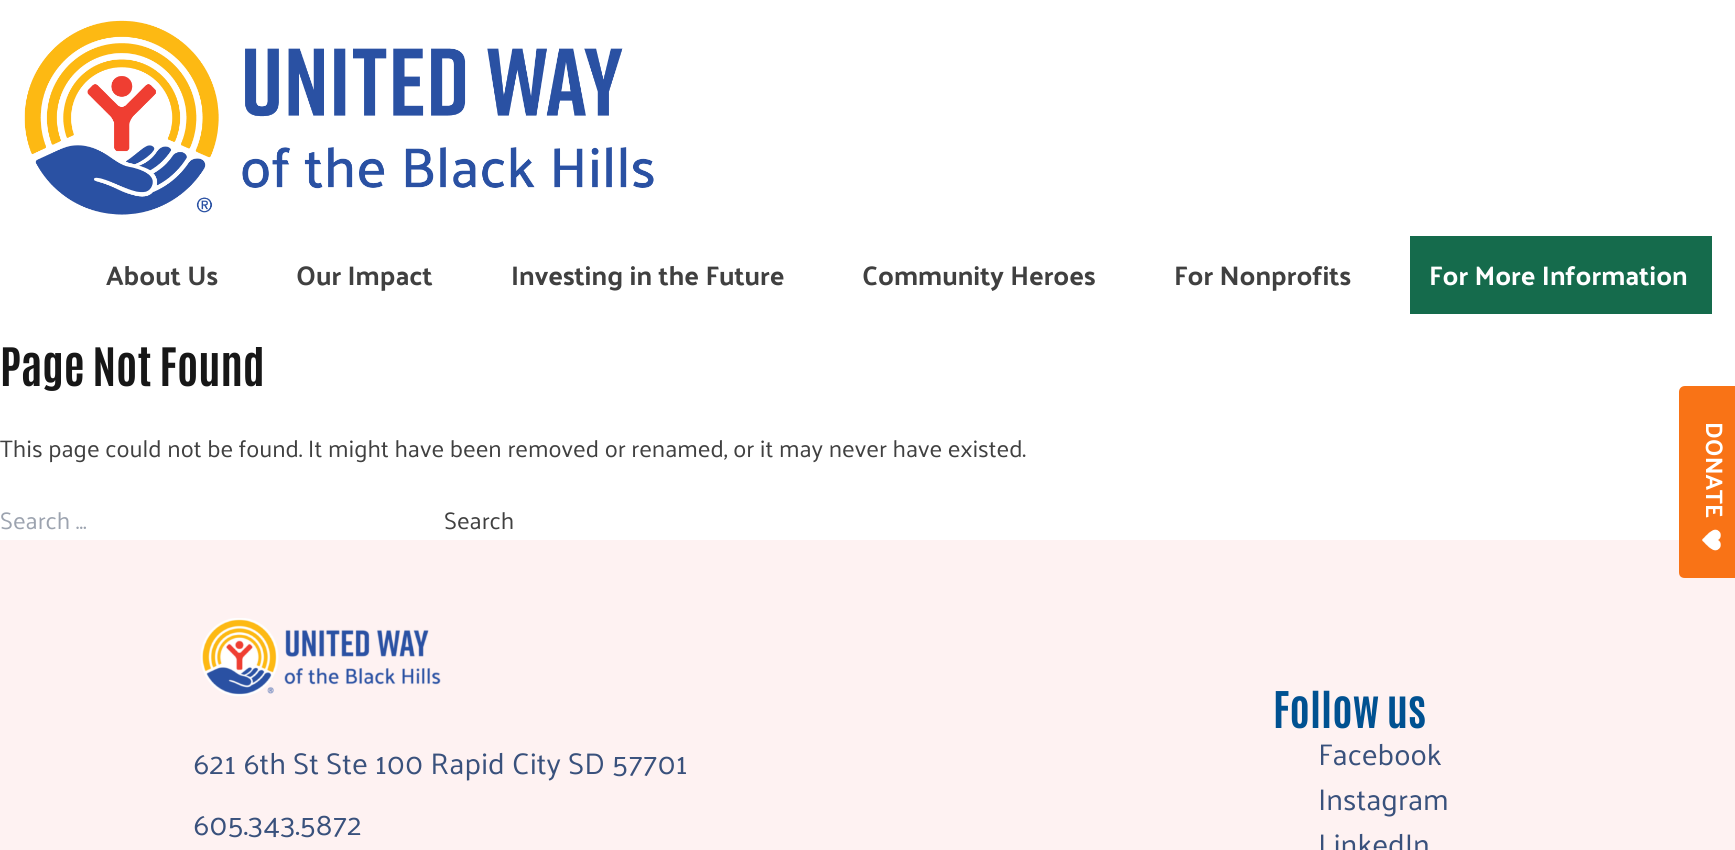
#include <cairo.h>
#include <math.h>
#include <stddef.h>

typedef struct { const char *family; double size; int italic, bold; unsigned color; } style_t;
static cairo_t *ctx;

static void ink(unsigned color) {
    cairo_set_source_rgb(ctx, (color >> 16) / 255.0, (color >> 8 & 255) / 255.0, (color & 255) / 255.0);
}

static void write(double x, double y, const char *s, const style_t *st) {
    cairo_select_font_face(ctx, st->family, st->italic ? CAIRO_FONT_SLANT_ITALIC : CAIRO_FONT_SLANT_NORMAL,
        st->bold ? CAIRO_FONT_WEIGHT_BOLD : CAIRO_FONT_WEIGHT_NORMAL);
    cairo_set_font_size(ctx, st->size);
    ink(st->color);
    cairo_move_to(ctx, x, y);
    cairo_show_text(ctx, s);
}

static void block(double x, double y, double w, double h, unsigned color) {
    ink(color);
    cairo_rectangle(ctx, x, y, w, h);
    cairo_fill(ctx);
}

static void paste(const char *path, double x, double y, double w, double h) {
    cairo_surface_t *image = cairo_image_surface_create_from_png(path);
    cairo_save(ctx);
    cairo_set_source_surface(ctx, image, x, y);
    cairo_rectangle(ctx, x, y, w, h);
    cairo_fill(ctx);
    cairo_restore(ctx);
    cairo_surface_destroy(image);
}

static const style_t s1 = {"Palanquin", 27, 0, 1, 0x404040};
static const style_t s2 = {"Palanquin", 27, 0, 1, 0xffffff};
static const style_t s3 = {"Antonio", 45, 0, 1, 0x171717};
static const style_t s4 = {"Palanquin", 24, 0, 0, 0x404040};
static const style_t s5 = {"Palanquin", 24, 0, 0, 0x9ca3af};
static const style_t s6 = {"Palanquin", 24, 0, 1, 0xffffff};
static const style_t s7 = {"Palanquin", 30, 0, 0, 0x39517c};
static const style_t s8 = {"Antonio", 43, 0, 1, 0x005191};

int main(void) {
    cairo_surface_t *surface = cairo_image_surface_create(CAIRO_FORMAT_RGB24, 1735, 850);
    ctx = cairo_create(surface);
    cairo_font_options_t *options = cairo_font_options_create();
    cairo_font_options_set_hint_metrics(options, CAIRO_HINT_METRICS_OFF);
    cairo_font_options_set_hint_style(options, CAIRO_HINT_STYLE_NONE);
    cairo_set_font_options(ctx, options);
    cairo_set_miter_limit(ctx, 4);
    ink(0xffffff);
    cairo_paint(ctx);
    paste("pic1.png", 24, 20, 630, 195);
    write(106, 285, "About Us", &s1);
    write(296, 285, "Our Impact", &s1);
    write(511, 285, "Investing in the Future", &s1);
    write(862, 285, "Community Heroes", &s1);
    write(1174, 285, "For Nonprofits", &s1);
    block(1410, 236, 302, 78, 0x156b4c);
    write(1429, 285, "For More Information", &s2);
    write(0, 386, "Page Not Found", &s3);
    write(0, 457, "This page could not be found. It might have been removed or renamed, or it may never have existed.", &s4);
    write(0, 529, "Search …", &s5);
    write(444, 529, "Search", &s4);
    block(0, 540, 1735, 310, 0xfef2f2);
    ink(0xf97316);
    cairo_new_path(ctx);
    cairo_move_to(ctx, 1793, 392);
    cairo_line_to(ctx, 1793, 572);
    cairo_curve_to(ctx, 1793, 576, 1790, 578, 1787, 578);
    cairo_line_to(ctx, 1685, 578);
    cairo_curve_to(ctx, 1681, 578, 1679, 576, 1679, 572);
    cairo_line_to(ctx, 1679, 392);
    cairo_curve_to(ctx, 1679, 389, 1681, 386, 1685, 386);
    cairo_line_to(ctx, 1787, 386);
    cairo_curve_to(ctx, 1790, 386, 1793, 389, 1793, 392);
    cairo_close_path(ctx);
    cairo_fill(ctx);
    cairo_save(ctx);
    cairo_translate(ctx, 1706, 422);
    cairo_rotate(ctx, 90 * M_PI / 180);
    write(0, 0, "DONATE", &s6);
    cairo_restore(ctx);
    paste("pic2.png", 1702, 529, 19, 22);
    paste("pic3.png", 1702, 529, 19, 22);
    paste("pic4.png", 200, 618, 241, 79);
    write(193, 774, "621 6th St Ste 100 Rapid City SD 57701", &s7);
    write(193, 835, "605.343.5872", &s7);
    write(1273, 728, "Follow us", &s8);
    write(1318, 765, "Facebook", &s7);
    write(1318, 810, "Instagram", &s7);
    write(1318, 855, "LinkedIn", &s7);
    cairo_surface_write_to_png(surface, "screenshot.png");
    cairo_font_options_destroy(options);
    cairo_destroy(ctx);
    cairo_surface_destroy(surface);
    return 0;
}
